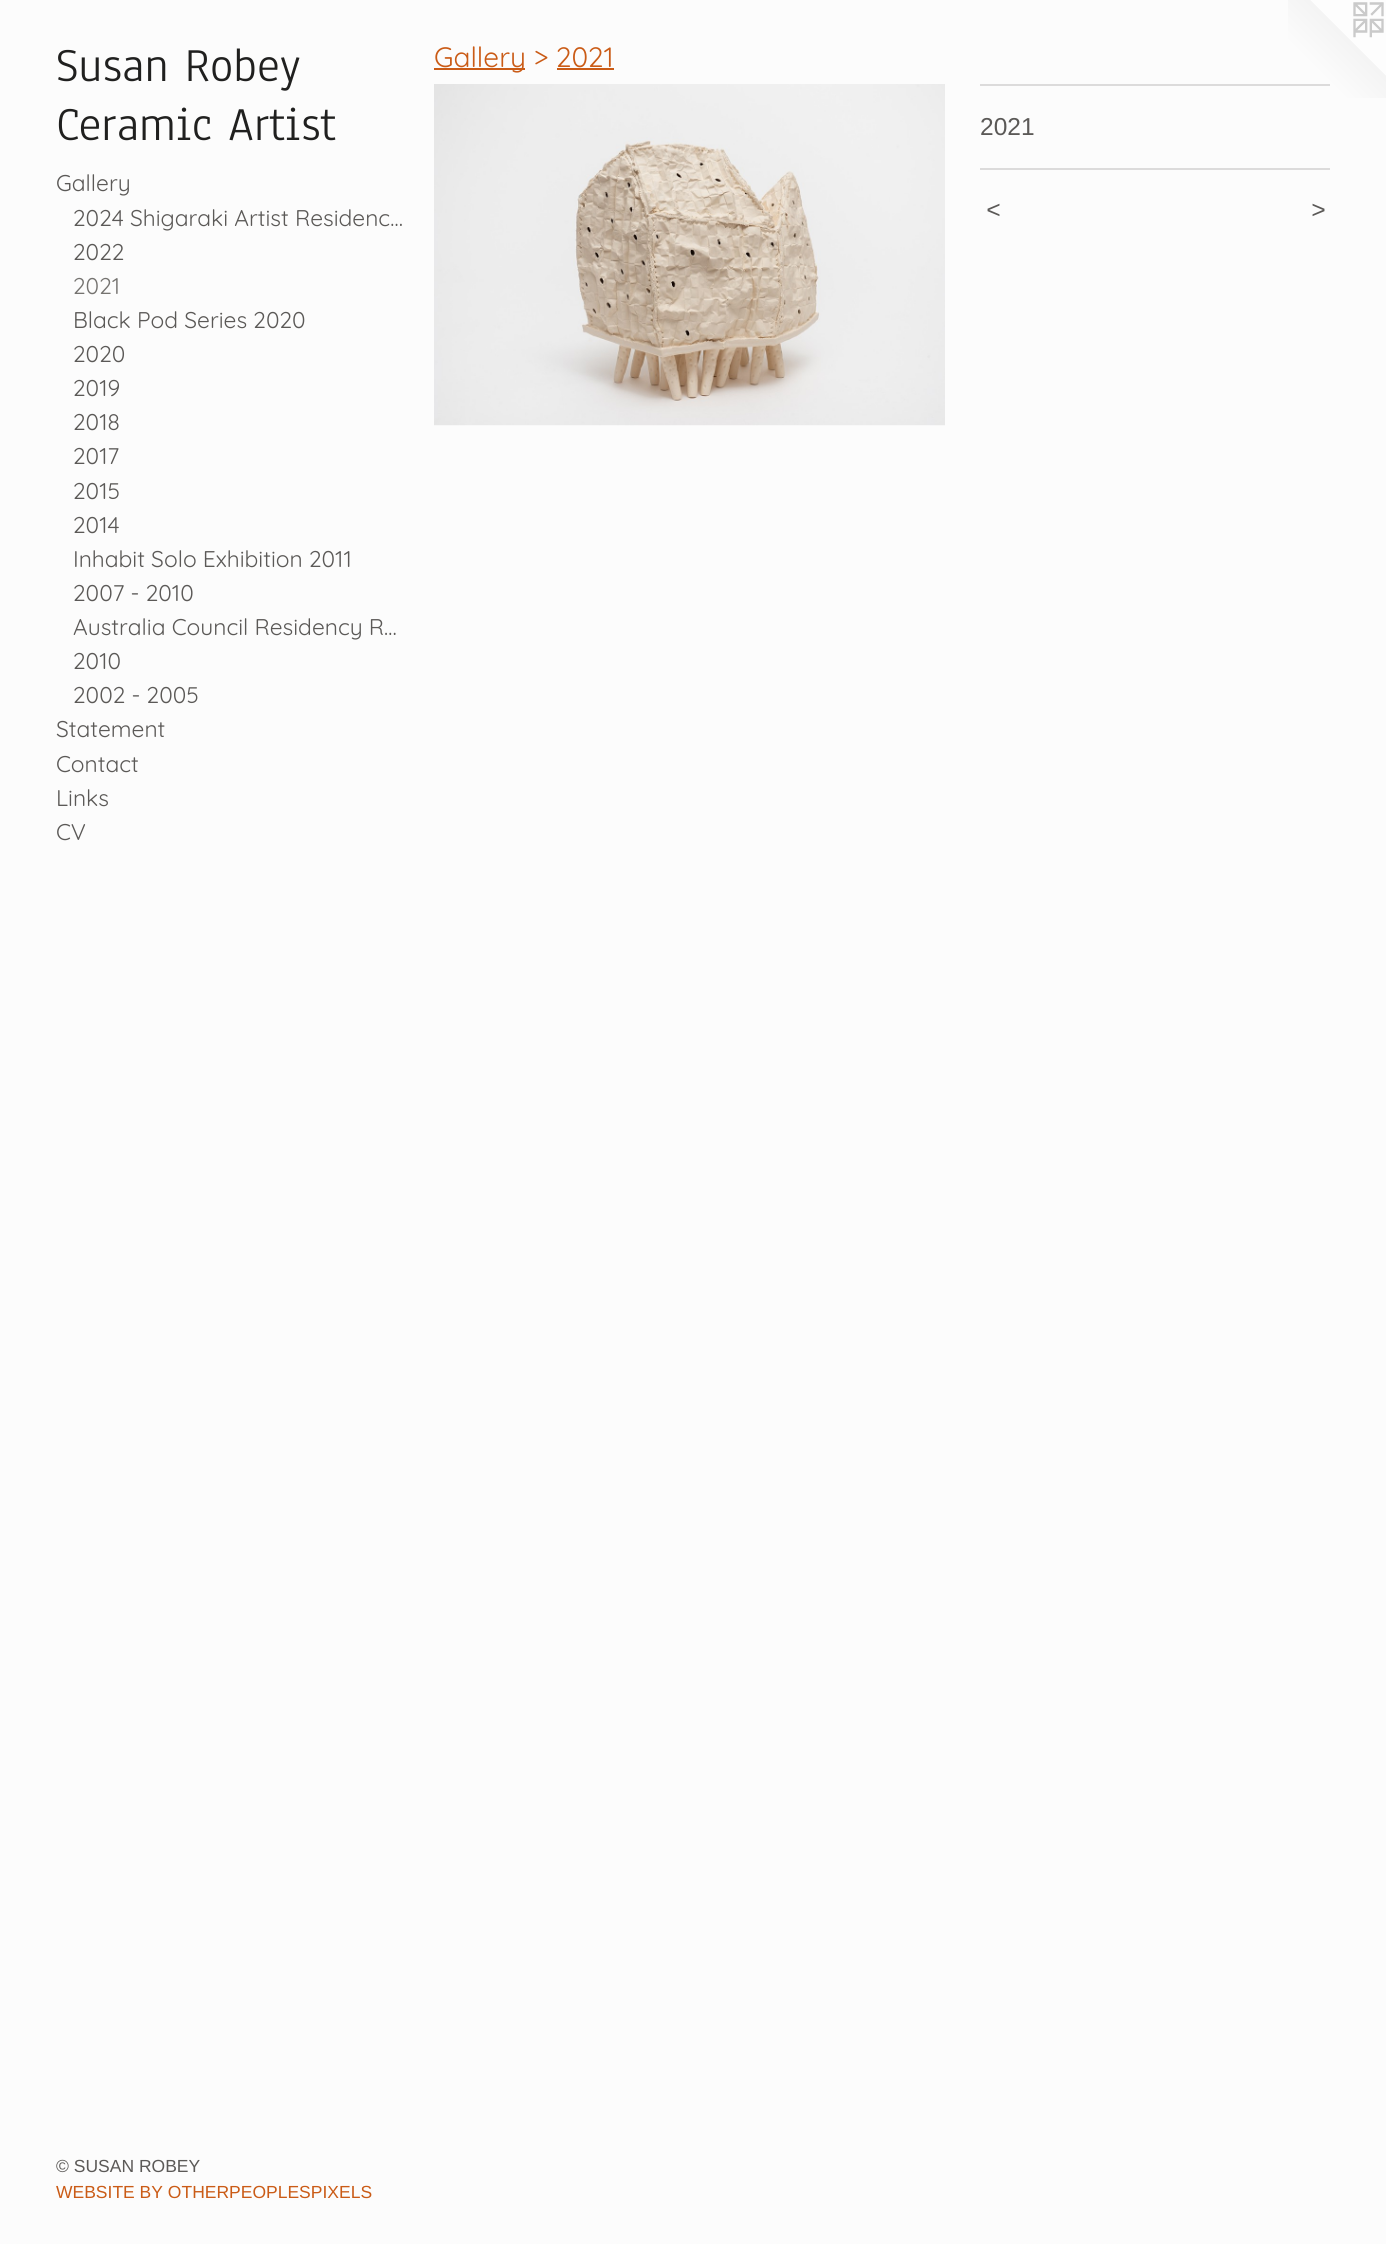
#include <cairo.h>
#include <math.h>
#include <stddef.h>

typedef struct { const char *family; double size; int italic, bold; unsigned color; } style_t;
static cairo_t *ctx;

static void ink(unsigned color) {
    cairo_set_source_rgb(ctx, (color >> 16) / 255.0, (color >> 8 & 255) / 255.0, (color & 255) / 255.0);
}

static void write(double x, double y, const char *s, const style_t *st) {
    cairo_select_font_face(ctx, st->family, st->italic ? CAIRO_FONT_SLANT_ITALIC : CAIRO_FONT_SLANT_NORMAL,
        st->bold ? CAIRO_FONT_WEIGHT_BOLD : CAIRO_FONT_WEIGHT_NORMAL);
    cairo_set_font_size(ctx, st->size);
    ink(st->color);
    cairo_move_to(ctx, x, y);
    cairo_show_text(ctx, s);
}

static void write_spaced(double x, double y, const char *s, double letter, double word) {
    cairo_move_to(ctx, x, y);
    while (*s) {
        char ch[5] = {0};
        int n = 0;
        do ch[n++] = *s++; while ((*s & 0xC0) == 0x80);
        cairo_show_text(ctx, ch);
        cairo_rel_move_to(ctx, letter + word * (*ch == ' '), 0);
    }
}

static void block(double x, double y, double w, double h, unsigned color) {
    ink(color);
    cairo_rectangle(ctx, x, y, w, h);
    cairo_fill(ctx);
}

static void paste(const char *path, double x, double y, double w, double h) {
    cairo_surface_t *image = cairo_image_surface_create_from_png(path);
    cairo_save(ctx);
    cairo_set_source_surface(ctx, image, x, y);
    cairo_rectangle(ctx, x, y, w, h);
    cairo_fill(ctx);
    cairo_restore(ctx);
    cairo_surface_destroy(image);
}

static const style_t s1 = {"Anaheim", 49, 0, 0, 0x20201f};
static const style_t s2 = {"Quicksand Light", 22.75, 0, 0, 0x5b5957};
static const style_t s3 = {"Quicksand Light", 22.75, 0, 0, 0x757370};
static const style_t s4 = {"Liberation Sans", 17.5, 0, 0, 0x5b5957};
static const style_t s5 = {"Liberation Sans", 17.5, 0, 0, 0xca5b16};
static const style_t s6 = {"Quicksand Light", 28, 0, 0, 0xca5b16};
static const style_t s7 = {"Liberation Sans", 24.5, 0, 0, 0x5b5957};

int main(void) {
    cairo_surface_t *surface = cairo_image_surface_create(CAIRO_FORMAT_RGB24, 1386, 2244);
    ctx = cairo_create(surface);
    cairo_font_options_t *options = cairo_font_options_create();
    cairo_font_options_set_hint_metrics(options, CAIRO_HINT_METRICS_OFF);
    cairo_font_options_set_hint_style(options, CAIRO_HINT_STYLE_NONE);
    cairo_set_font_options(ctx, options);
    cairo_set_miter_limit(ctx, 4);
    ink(0xfcfcfc);
    cairo_paint(ctx);
    write(56, 81, "Susan Robey", &s1);
    write(56, 140, "Ceramic Artist", &s1);
    write(56, 191, "Gallery", &s2);
    write(73, 226, "2024 Shigaraki Artist Residenc…", &s2);
    write(73, 260, "2022", &s2);
    write(73, 294, "2021", &s3);
    write(73, 328, "Black Pod Series 2020", &s2);
    write(73, 362, "2020", &s2);
    write(73, 396, "2019", &s2);
    write(73, 430, "2018", &s2);
    write(73, 464, "2017", &s2);
    write(73, 499, "2015", &s2);
    write(73, 533, "2014", &s2);
    write(73, 567, "Inhabit Solo Exhibition 2011", &s2);
    write(73, 601, "2007 - 2010", &s2);
    write(73, 635, "Australia Council Residency R…", &s2);
    write(73, 669, "2010", &s2);
    write(73, 703, "2002 - 2005", &s2);
    write(56, 737, "Statement", &s2);
    write(56, 772, "Contact", &s2);
    write(56, 806, "Links", &s2);
    write(56, 840, "CV", &s2);
    write(56, 2172, "© SUSAN ROBEY", &s4);
    write(56, 2198, "WEBSITE BY OTHERPEOPLESPIXELS", &s5);
    block(434, 68, 91, 2, 0xca5b16);
    write(434, 67, "Gallery > 2021", &s6);
    block(557, 68, 57, 2, 0xca5b16);
    paste("pic1.png", 434, 84, 511, 342);
    paste("pic2.png", 1288, 0, 98, 98);
    block(980, 84, 350, 2, 0xdcdbdb);
    write(980, 135, "2021", &s7);
    block(980, 168, 350, 2, 0xdcdbdb);
    cairo_select_font_face(ctx, "Liberation Sans", CAIRO_FONT_SLANT_ITALIC, CAIRO_FONT_WEIGHT_NORMAL);
    ink(0x5b5957);
    write_spaced(986, 218, "<", 2, 0);
    write_spaced(1311, 218, ">", 2, 0);
    cairo_surface_write_to_png(surface, "screenshot.png");
    cairo_font_options_destroy(options);
    cairo_destroy(ctx);
    cairo_surface_destroy(surface);
    return 0;
}
